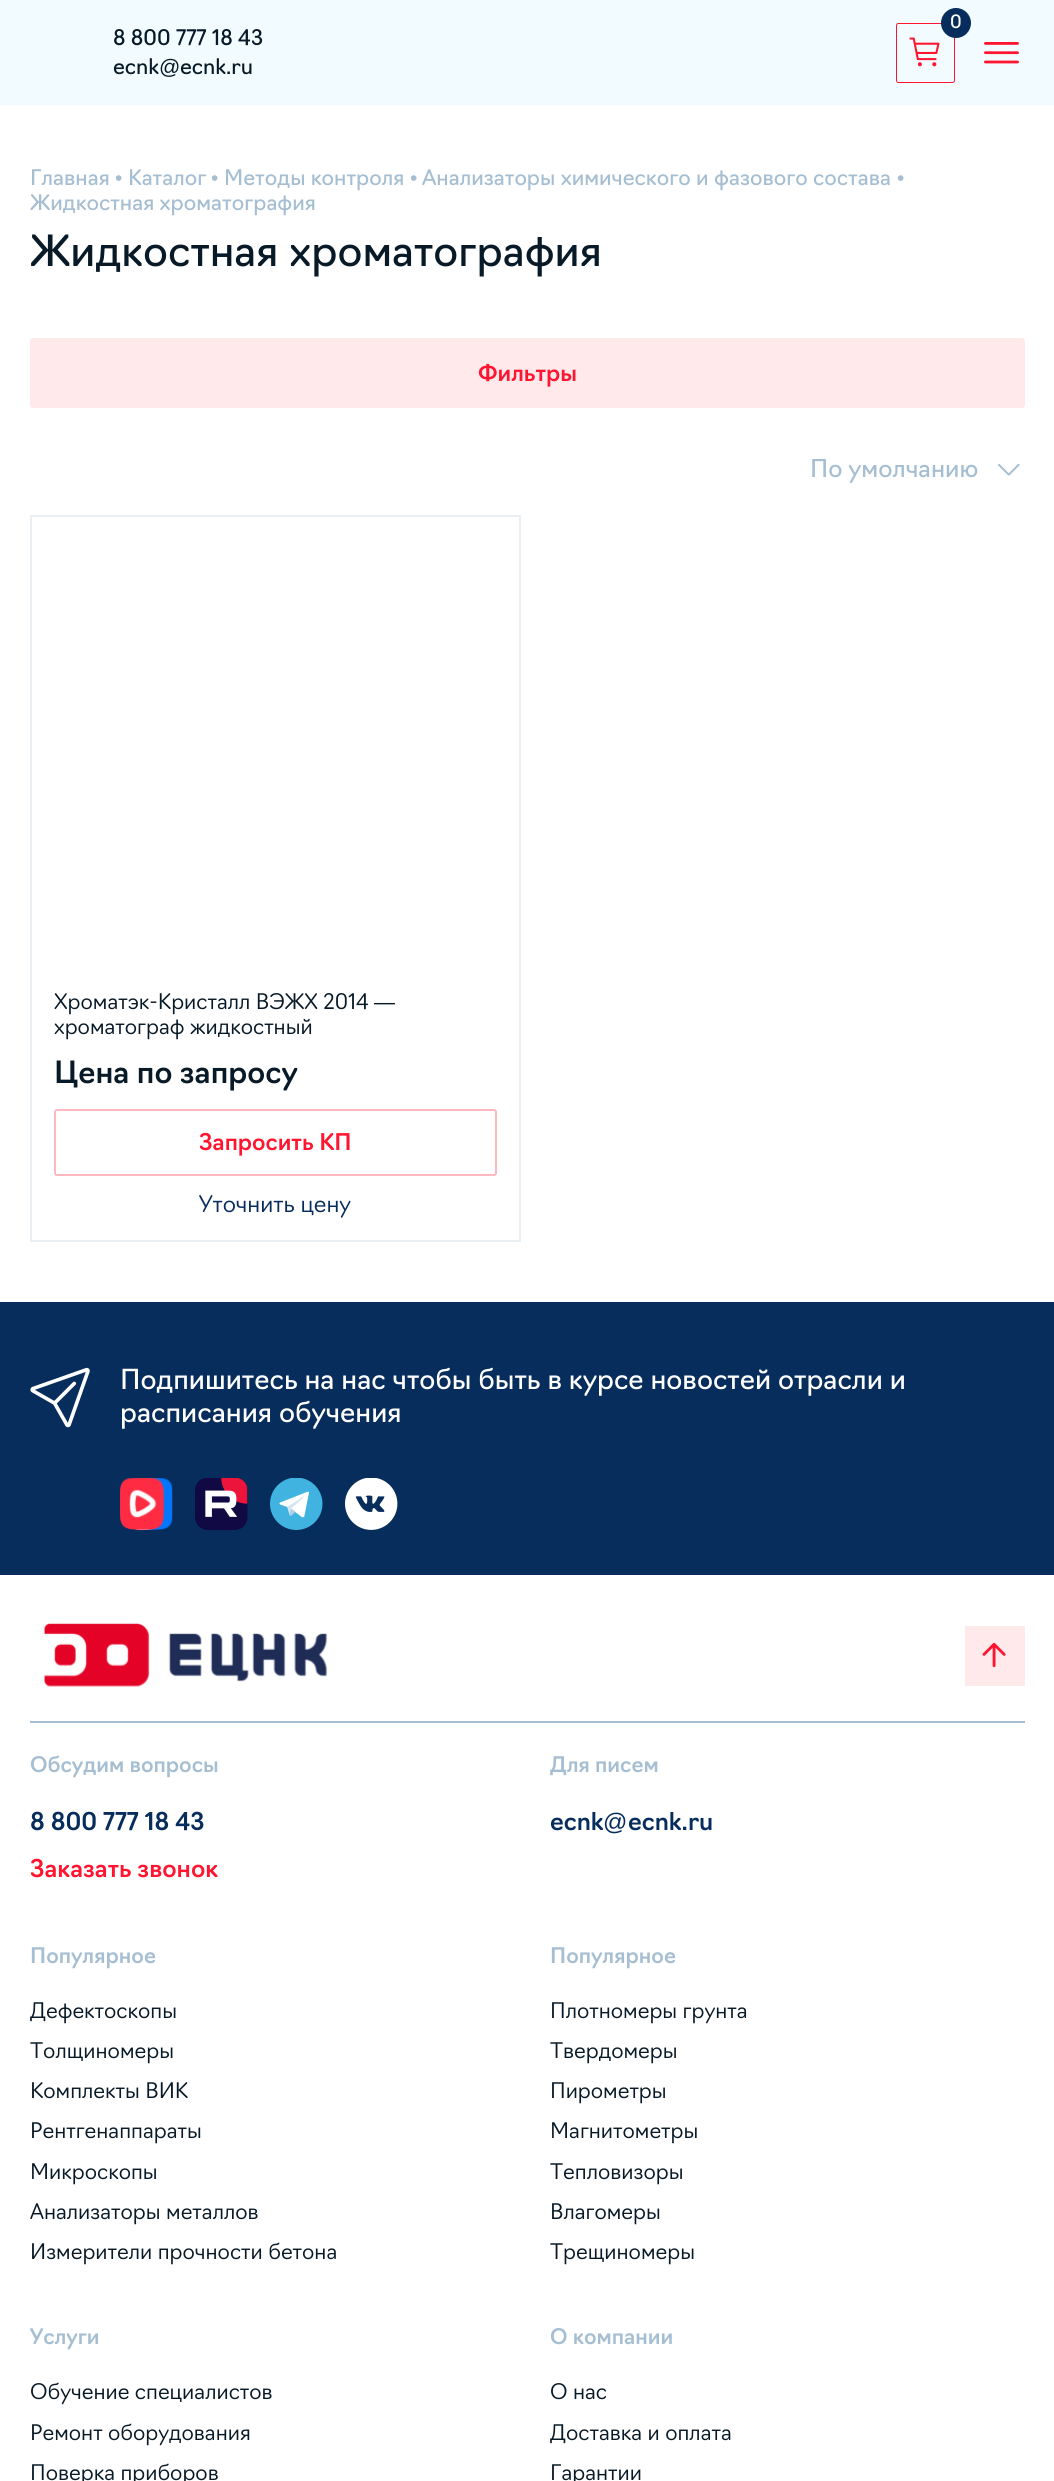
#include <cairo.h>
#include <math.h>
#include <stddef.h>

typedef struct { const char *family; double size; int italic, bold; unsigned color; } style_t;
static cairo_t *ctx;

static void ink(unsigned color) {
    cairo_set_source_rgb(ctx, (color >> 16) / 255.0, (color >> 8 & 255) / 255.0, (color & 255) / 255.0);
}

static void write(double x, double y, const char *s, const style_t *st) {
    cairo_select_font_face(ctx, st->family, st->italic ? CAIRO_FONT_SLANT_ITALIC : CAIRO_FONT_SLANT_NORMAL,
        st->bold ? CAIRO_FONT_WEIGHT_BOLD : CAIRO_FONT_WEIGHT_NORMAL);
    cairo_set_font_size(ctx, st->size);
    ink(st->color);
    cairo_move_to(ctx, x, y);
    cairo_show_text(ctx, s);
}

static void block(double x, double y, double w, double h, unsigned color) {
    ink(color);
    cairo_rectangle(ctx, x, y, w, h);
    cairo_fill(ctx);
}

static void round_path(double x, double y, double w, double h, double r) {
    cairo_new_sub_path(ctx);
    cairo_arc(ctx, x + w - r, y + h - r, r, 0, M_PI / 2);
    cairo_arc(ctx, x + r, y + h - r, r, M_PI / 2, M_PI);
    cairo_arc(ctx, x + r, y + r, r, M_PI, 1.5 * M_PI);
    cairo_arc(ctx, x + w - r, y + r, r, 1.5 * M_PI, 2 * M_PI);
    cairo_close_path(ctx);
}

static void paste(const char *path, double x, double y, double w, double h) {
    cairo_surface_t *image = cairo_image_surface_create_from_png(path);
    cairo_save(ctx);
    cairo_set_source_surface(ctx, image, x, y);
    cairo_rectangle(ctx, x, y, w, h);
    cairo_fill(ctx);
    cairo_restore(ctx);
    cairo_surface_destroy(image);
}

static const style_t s1 = {"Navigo", 18, 0, 0, 0xffffff};
static const style_t s2 = {"Navigo", 21, 0, 0, 0x081a27};
static const style_t s3 = {"Liberation Sans", 21, 0, 0, 0x081a27};
static const style_t s4 = {"Navigo", 21, 0, 0, 0xa5bed2};
static const style_t s5 = {"Liberation Sans", 21, 0, 0, 0xa5bed2};
static const style_t s6 = {"Navigo", 42, 0, 0, 0x081a27};
static const style_t s7 = {"Navigo Medium", 22.5, 0, 0, 0xff1530};
static const style_t s8 = {"Navigo", 24, 0, 0, 0xa5bed2};
static const style_t s9 = {"Navigo Light", 21, 0, 0, 0x081a27};
static const style_t s10 = {"Navigo Medium", 30, 0, 0, 0x081a27};
static const style_t s11 = {"Navigo Light", 22.5, 0, 0, 0x072d5c};
static const style_t s12 = {"Navigo", 27, 0, 0, 0xffffff};
static const style_t s13 = {"Navigo Medium", 21, 0, 0, 0xa5bed2};
static const style_t s14 = {"Navigo Medium", 24, 0, 0, 0x072d5c};
static const style_t s15 = {"Navigo Medium", 24, 0, 0, 0xff1530};
static const style_t s16 = {"Liberation Sans", 24, 0, 0, 0x072d5c};

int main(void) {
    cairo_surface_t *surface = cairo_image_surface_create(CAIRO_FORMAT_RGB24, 1054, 2481);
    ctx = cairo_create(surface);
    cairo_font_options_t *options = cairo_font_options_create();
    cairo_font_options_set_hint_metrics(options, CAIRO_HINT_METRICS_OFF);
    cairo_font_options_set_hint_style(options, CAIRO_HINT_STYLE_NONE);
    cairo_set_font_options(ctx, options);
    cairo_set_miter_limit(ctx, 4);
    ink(0xffffff);
    cairo_paint(ctx);
    block(0, 0, 1054, 105, 0xf2fbff);
    paste("pic1.png", 896, 23, 59, 60);
    ink(0x072d5c);
    cairo_arc(ctx, 956, 23, 15, 0, 2 * M_PI);
    cairo_fill(ctx);
    write(950, 28, "0", &s1);
    paste("pic2.png", 984, 42, 35, 22);
    write(113, 45, "8 800 777 18 43", &s2);
    write(113, 74, "ecnk", &s2);
    write(159, 74, "@", &s3);
    write(180, 74, "ecnk.ru", &s2);
    write(30, 185, "Главная", &s4);
    write(115, 185, "•", &s5);
    write(128, 185, "Каталог", &s4);
    write(211, 185, "•", &s5);
    write(224, 185, "Методы контроля", &s4);
    write(410, 185, "•", &s5);
    write(422, 185, "Анализаторы химического и фазового состава", &s4);
    write(897, 185, "•", &s5);
    write(30, 210, "Жидкостная хроматография", &s4);
    write(30, 266, "Жидкостная хроматография", &s6);
    ink(0xffe9eb);
    round_path(30, 338, 995, 70, 3);
    cairo_fill(ctx);
    write(478, 381, "Фильтры", &s7);
    write(810, 477, "По умолчанию", &s8);
    paste("pic3.png", 998, 463, 22, 13);
    cairo_rectangle(ctx, 31, 516, 489, 725);
    ink(0xe9eff3);
    cairo_stroke(ctx);
    write(54, 1009, "Хроматэк-Кристалл ВЭЖХ 2014", &s9);
    write(374, 1009, "—", &s3);
    write(54, 1034, "хроматограф жидкостный", &s9);
    write(54, 1083, "Цена по запросу", &s10);
    round_path(55, 1110, 441, 65, 2);
    ink(0xffb8c0);
    cairo_stroke(ctx);
    write(199, 1150, "Запросить КП", &s7);
    write(199, 1212, "Уточнить цену", &s11);
    block(0, 1302, 1054, 273, 0x072d5c);
    paste("pic4.png", 30, 1367, 60, 61);
    write(120, 1389, "Подпишитесь на нас чтобы быть в курсе новостей отрасли и", &s12);
    write(120, 1422, "расписания обучения", &s12);
    paste("pic5.png", 120, 1478, 53, 52);
    paste("pic6.png", 195, 1478, 53, 52);
    paste("pic7.png", 270, 1478, 53, 52);
    paste("pic8.png", 345, 1478, 53, 52);
    paste("pic9.png", 43, 1623, 285, 64);
    paste("pic10.png", 965, 1626, 60, 60);
    block(30, 1721, 995, 2, 0xa5bed2);
    write(30, 1772, "Обсудим вопросы", &s13);
    write(30, 1830, "8 800 777 18 43", &s14);
    write(30, 1877, "Заказать звонок", &s15);
    write(550, 1772, "Для писем", &s13);
    write(550, 1830, "ecnk", &s14);
    write(603, 1830, "@", &s16);
    write(628, 1830, "ecnk.ru", &s14);
    write(30, 1963, "Популярное", &s13);
    write(30, 2018, "Дефектоскопы", &s9);
    write(30, 2058, "Толщиномеры", &s9);
    write(30, 2098, "Комплекты ВИК", &s9);
    write(30, 2138, "Рентгенаппараты", &s9);
    write(30, 2179, "Микроскопы", &s9);
    write(30, 2219, "Анализаторы металлов", &s9);
    write(30, 2259, "Измерители прочности бетона", &s9);
    write(550, 1963, "Популярное", &s13);
    write(550, 2018, "Плотномеры грунта", &s9);
    write(550, 2058, "Твердомеры", &s9);
    write(550, 2098, "Пирометры", &s9);
    write(550, 2138, "Магнитометры", &s9);
    write(550, 2179, "Тепловизоры", &s9);
    write(550, 2219, "Влагомеры", &s9);
    write(550, 2259, "Трещиномеры", &s9);
    write(30, 2344, "Услуги", &s13);
    write(30, 2399, "Обучение специалистов", &s9);
    write(30, 2440, "Ремонт оборудования", &s9);
    write(30, 2480, "Поверка приборов", &s9);
    write(550, 2344, "О компании", &s13);
    write(550, 2399, "О нас", &s9);
    write(550, 2440, "Доставка и оплата", &s9);
    write(550, 2480, "Гарантии", &s9);
    cairo_surface_write_to_png(surface, "screenshot.png");
    cairo_font_options_destroy(options);
    cairo_destroy(ctx);
    cairo_surface_destroy(surface);
    return 0;
}
